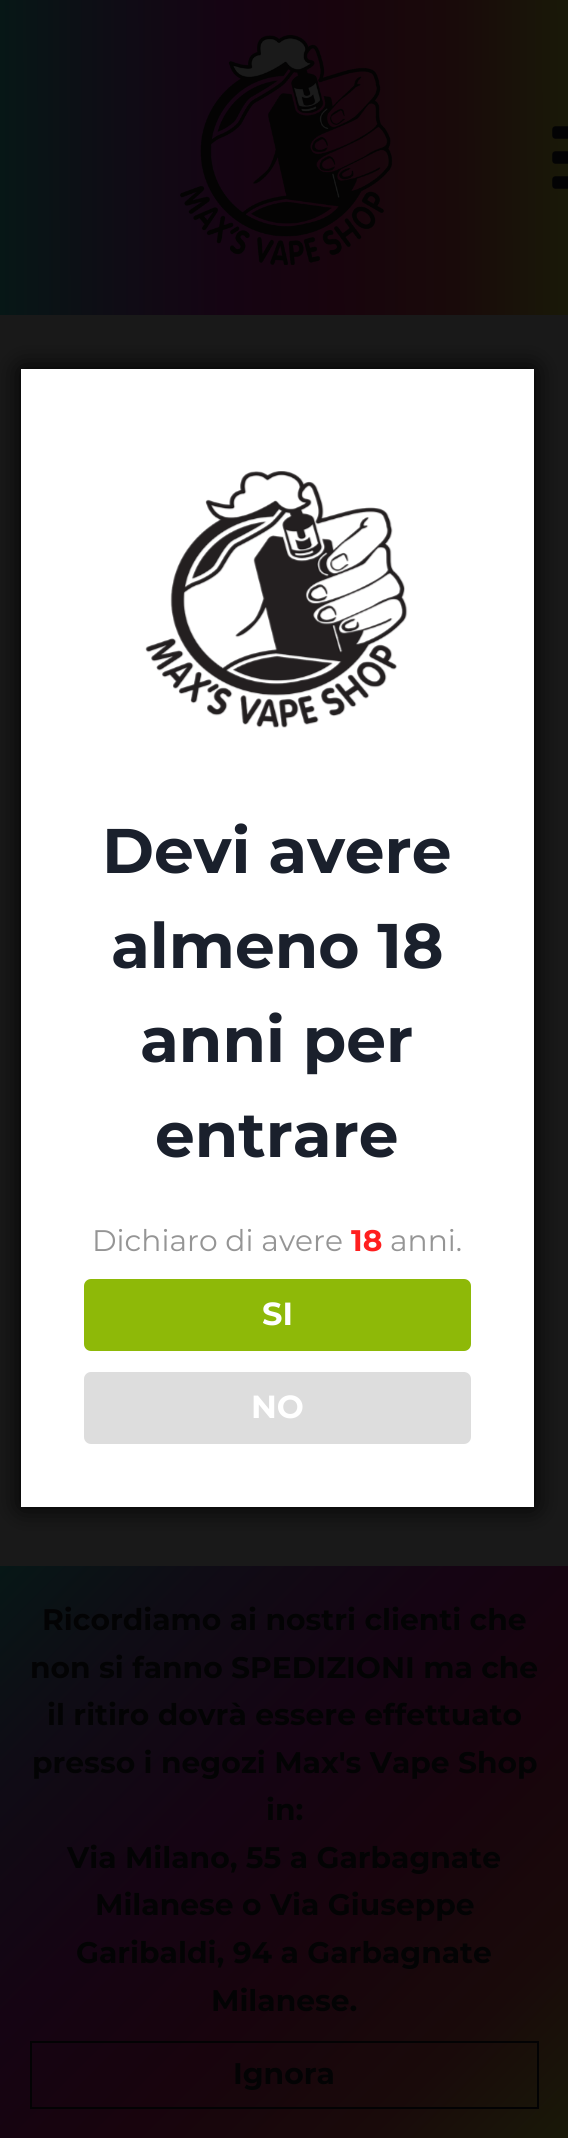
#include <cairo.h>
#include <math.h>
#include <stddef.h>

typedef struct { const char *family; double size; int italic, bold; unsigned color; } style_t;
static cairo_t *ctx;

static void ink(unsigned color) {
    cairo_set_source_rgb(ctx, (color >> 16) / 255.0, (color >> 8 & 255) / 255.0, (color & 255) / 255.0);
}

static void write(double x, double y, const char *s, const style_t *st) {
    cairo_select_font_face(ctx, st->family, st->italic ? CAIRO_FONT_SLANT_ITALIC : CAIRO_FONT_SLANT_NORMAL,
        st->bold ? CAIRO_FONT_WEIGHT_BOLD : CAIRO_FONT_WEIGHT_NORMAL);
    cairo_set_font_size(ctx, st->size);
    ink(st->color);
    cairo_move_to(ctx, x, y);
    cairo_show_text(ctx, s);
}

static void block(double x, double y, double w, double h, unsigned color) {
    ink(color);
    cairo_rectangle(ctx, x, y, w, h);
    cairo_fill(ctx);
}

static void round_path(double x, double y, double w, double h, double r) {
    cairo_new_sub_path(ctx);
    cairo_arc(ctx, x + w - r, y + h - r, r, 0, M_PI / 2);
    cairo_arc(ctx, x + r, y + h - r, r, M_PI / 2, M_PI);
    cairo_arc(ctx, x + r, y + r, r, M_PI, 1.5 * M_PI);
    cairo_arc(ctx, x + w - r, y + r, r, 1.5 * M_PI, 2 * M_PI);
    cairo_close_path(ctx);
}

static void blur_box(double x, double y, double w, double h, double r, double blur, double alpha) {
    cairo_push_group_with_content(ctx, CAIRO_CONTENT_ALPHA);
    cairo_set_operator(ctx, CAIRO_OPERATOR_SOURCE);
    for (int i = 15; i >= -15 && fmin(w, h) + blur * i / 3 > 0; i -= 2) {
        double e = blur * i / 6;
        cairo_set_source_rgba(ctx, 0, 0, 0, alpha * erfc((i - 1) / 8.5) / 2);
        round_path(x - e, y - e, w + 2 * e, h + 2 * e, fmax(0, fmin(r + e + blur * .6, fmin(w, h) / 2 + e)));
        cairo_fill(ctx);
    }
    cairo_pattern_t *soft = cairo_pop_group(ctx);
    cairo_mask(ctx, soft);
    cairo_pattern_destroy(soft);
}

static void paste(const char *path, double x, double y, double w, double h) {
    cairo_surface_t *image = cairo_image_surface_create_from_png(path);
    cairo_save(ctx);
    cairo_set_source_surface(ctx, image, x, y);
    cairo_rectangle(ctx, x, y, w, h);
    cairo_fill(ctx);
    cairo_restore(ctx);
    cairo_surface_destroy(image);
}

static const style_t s1 = {"Montserrat", 63, 0, 1, 0x1a202c};
static const style_t s2 = {"Montserrat", 29.75, 0, 0, 0x959595};
static const style_t s3 = {"Montserrat", 29.75, 0, 1, 0xff1f1f};
static const style_t s4 = {"Montserrat", 32, 0, 1, 0xffffff};
static const style_t s5 = {"Montserrat", 29.75, 0, 1, 0x030304};

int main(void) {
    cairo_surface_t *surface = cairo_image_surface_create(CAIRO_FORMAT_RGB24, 568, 2138);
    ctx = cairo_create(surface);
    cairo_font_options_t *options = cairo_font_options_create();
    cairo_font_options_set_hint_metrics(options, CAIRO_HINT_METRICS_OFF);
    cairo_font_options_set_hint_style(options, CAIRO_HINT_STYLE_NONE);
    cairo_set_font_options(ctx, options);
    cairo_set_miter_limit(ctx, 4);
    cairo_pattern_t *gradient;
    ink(0x191919);
    cairo_paint(ctx);
    gradient = cairo_pattern_create_linear(0, 158, 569, 157);
    cairo_pattern_add_color_stop_rgba(gradient, 0, 0.027, 0.09, 0.086, 1);
    cairo_pattern_add_color_stop_rgba(gradient, 0.21, 0.059, 0.047, 0.082, 1);
    cairo_pattern_add_color_stop_rgba(gradient, 0.39, 0.082, 0.016, 0.075, 1);
    cairo_pattern_add_color_stop_rgba(gradient, 0.59, 0.094, 0.016, 0.051, 1);
    cairo_pattern_add_color_stop_rgba(gradient, 0.8, 0.098, 0.039, 0.039, 1);
    cairo_pattern_add_color_stop_rgba(gradient, 1, 0.098, 0.098, 0.031, 1);
    cairo_set_source(ctx, gradient);
    cairo_pattern_destroy(gradient);
    cairo_rectangle(ctx, 0, 0, 568, 315);
    cairo_fill(ctx);
    paste("pic1.png", 180, 35, 213, 230);
    paste("pic2.png", 552, 126, 16, 63);
    ink(0x000000);
    blur_box(21, 369, 513, 1138, 0, 13, 1);
    block(21, 369, 513, 1138, 0xffffff);
    paste("pic3.png", 145, 471, 263, 257);
    write(102, 873, "Devi avere", &s1);
    write(111, 968, "almeno 18", &s1);
    write(140, 1062, "anni per", &s1);
    write(155, 1157, "entrare", &s1);
    write(92, 1251, "Dichiaro di avere", &s2);
    write(351, 1251, "18", &s3);
    write(390, 1251, "anni.", &s2);
    ink(0x8eb908);
    round_path(84, 1279, 387, 72, 7);
    cairo_fill(ctx);
    write(262, 1325, "SI", &s4);
    ink(0xdddddd);
    round_path(84, 1372, 387, 72, 7);
    cairo_fill(ctx);
    write(251, 1418, "NO", &s4);
    gradient = cairo_pattern_create_linear(-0.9, 1567, 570, 2138);
    cairo_pattern_add_color_stop_rgba(gradient, 0, 0.027, 0.09, 0.086, 1);
    cairo_pattern_add_color_stop_rgba(gradient, 0.18, 0.059, 0.047, 0.082, 1);
    cairo_pattern_add_color_stop_rgba(gradient, 0.4, 0.082, 0.016, 0.075, 1);
    cairo_pattern_add_color_stop_rgba(gradient, 0.61, 0.094, 0.016, 0.051, 1);
    cairo_pattern_add_color_stop_rgba(gradient, 0.82, 0.098, 0.039, 0.039, 1);
    cairo_pattern_add_color_stop_rgba(gradient, 1, 0.098, 0.098, 0.031, 1);
    cairo_set_source(ctx, gradient);
    cairo_pattern_destroy(gradient);
    cairo_rectangle(ctx, 0, 1566, 568, 572);
    cairo_fill(ctx);
    write(42, 1630, "Ricordiamo ai nostri clienti che", &s5);
    write(30, 1678, "non si fanno SPEDIZIONI ma che", &s5);
    write(47, 1725, "il ritiro dovrà essere effettuato", &s5);
    write(32, 1773, "presso i negozi Max's Vape Shop", &s5);
    write(266, 1820, "in:", &s5);
    write(67, 1868, "Via Milano, 55 a Garbagnate", &s5);
    write(95, 1915, "Milanese o Via Giuseppe", &s5);
    write(76, 1963, "Garibaldi, 94 a Garbagnate", &s5);
    write(211, 2011, "Milanese.", &s5);
    cairo_rectangle(ctx, 31, 2042, 507, 66);
    cairo_stroke(ctx);
    write(233, 2084, "Ignora", &s5);
    cairo_surface_write_to_png(surface, "screenshot.png");
    cairo_font_options_destroy(options);
    cairo_destroy(ctx);
    cairo_surface_destroy(surface);
    return 0;
}
